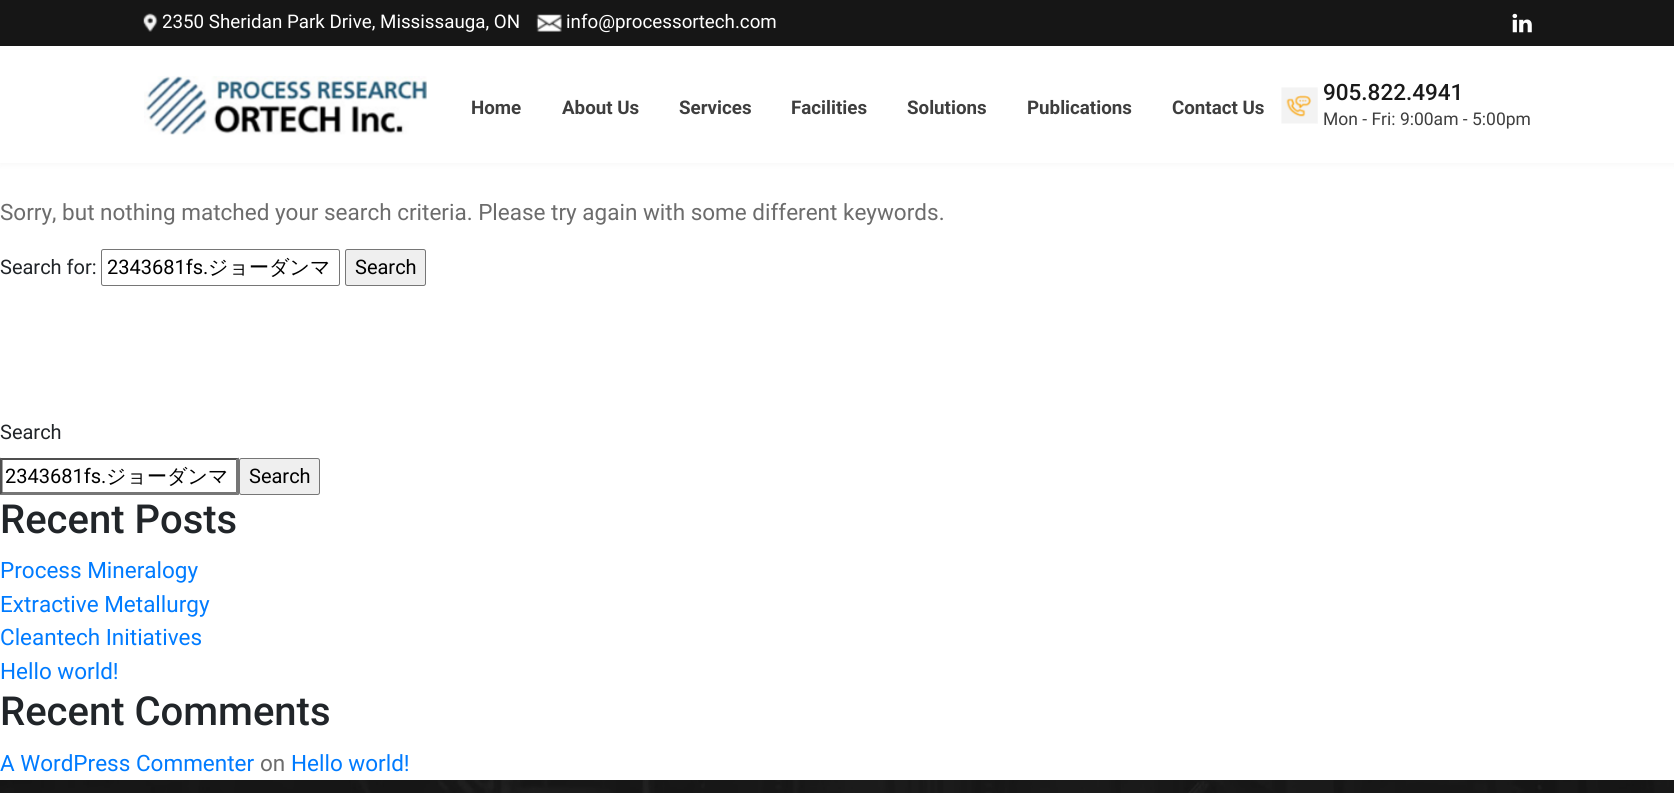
#include <cairo.h>
#include <math.h>
#include <stddef.h>

typedef struct { const char *family; double size; int italic, bold; unsigned color; } style_t;
static cairo_t *ctx;

static void ink(unsigned color) {
    cairo_set_source_rgb(ctx, (color >> 16) / 255.0, (color >> 8 & 255) / 255.0, (color & 255) / 255.0);
}

static void write(double x, double y, const char *s, const style_t *st) {
    cairo_select_font_face(ctx, st->family, st->italic ? CAIRO_FONT_SLANT_ITALIC : CAIRO_FONT_SLANT_NORMAL,
        st->bold ? CAIRO_FONT_WEIGHT_BOLD : CAIRO_FONT_WEIGHT_NORMAL);
    cairo_set_font_size(ctx, st->size);
    ink(st->color);
    cairo_move_to(ctx, x, y);
    cairo_show_text(ctx, s);
}

static void block(double x, double y, double w, double h, unsigned color) {
    ink(color);
    cairo_rectangle(ctx, x, y, w, h);
    cairo_fill(ctx);
}

static void round_path(double x, double y, double w, double h, double r) {
    cairo_new_sub_path(ctx);
    cairo_arc(ctx, x + w - r, y + h - r, r, 0, M_PI / 2);
    cairo_arc(ctx, x + r, y + h - r, r, M_PI / 2, M_PI);
    cairo_arc(ctx, x + r, y + r, r, M_PI, 1.5 * M_PI);
    cairo_arc(ctx, x + w - r, y + r, r, 1.5 * M_PI, 2 * M_PI);
    cairo_close_path(ctx);
}

static void blur_box(double x, double y, double w, double h, double r, double blur, double alpha) {
    cairo_push_group_with_content(ctx, CAIRO_CONTENT_ALPHA);
    cairo_set_operator(ctx, CAIRO_OPERATOR_SOURCE);
    for (int i = 15; i >= -15 && fmin(w, h) + blur * i / 3 > 0; i -= 2) {
        double e = blur * i / 6;
        cairo_set_source_rgba(ctx, 0, 0, 0, alpha * erfc((i - 1) / 8.5) / 2);
        round_path(x - e, y - e, w + 2 * e, h + 2 * e, fmax(0, fmin(r + e + blur * .6, fmin(w, h) / 2 + e)));
        cairo_fill(ctx);
    }
    cairo_pattern_t *soft = cairo_pop_group(ctx);
    cairo_mask(ctx, soft);
    cairo_pattern_destroy(soft);
}

static void paste(const char *path, double x, double y, double w, double h) {
    cairo_surface_t *image = cairo_image_surface_create_from_png(path);
    cairo_save(ctx);
    cairo_set_source_surface(ctx, image, x, y);
    cairo_rectangle(ctx, x, y, w, h);
    cairo_fill(ctx);
    cairo_restore(ctx);
    cairo_surface_destroy(image);
}

static const style_t s1 = {"Roboto", 18.75, 0, 0, 0xffffff};
static const style_t s2 = {"Roboto", 18.75, 0, 1, 0x3e3e3e};
static const style_t s3 = {"Roboto Medium", 22.5, 0, 0, 0x191919};
static const style_t s4 = {"Roboto", 17.5, 0, 0, 0x3e3e3e};
static const style_t s5 = {"Roboto", 22.5, 0, 0, 0x6c6c6c};
static const style_t s6 = {"Roboto", 20, 0, 0, 0x212529};
static const style_t s7 = {"Roboto", 20, 0, 0, 0x000000};
static const style_t s8 = {"WenQuanYi Zen Hei Medium", 20, 0, 0, 0x000000};
static const style_t s9 = {"Roboto Medium", 40, 0, 0, 0x212529};
static const style_t s10 = {"Roboto", 22.5, 0, 0, 0x007bff};

int main(void) {
    cairo_surface_t *surface = cairo_image_surface_create(CAIRO_FORMAT_RGB24, 1674, 793);
    ctx = cairo_create(surface);
    cairo_font_options_t *options = cairo_font_options_create();
    cairo_font_options_set_hint_metrics(options, CAIRO_HINT_METRICS_OFF);
    cairo_font_options_set_hint_style(options, CAIRO_HINT_STYLE_NONE);
    cairo_set_font_options(ctx, options);
    cairo_set_miter_limit(ctx, 4);
    ink(0xffffff);
    cairo_paint(ctx);
    ink(0x000000);
    blur_box(0, 0, 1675, 163, 0, 4, 0.05);
    block(0, 46, 1674, 117, 0xffffff);
    block(0, 0, 1674, 46, 0x161616);
    paste("pic1.png", 143, 13, 15, 19);
    write(162, 28, "2350 Sheridan Park Drive, Mississauga, ON", &s1);
    paste("pic2.png", 536, 14, 26, 18);
    write(566, 28, "info@processortech.com", &s1);
    paste("pic3.png", 1512, 13, 20, 20);
    paste("pic4.png", 144, 76, 283, 59);
    write(471, 114, "Home", &s2);
    write(562, 114, "About Us", &s2);
    write(679, 114, "Services", &s2);
    write(791, 114, "Facilities", &s2);
    write(907, 114, "Solutions", &s2);
    write(1027, 114, "Publications", &s2);
    write(1172, 114, "Contact Us", &s2);
    paste("pic5.png", 1281, 87, 37, 37);
    write(1323, 100, "905.822.4941", &s3);
    write(1323, 125, "Mon - Fri: 9:00am - 5:00pm", &s4);
    write(0, 220, "Sorry, but nothing matched your search criteria. Please try again with some different keywords.", &s5);
    write(0, 274, "Search for:", &s6);
    round_path(101.5, 249.5, 238, 36, 2);
    ink(0x767676);
    cairo_set_line_width(ctx, 1);
    cairo_stroke(ctx);
    write(107, 274, "2343681fs.", &s7);
    write(208, 274, "ジョーダンマ", &s8);
    ink(0xefefef);
    round_path(345.5, 249.5, 80, 36, 2);
    cairo_fill_preserve(ctx);
    ink(0x767676);
    cairo_stroke(ctx);
    write(355, 274, "Search", &s7);
    write(0, 439, "Search", &s6);
    ink(0x4f4f4f);
    cairo_new_path(ctx);
    cairo_move_to(ctx, 0, 458);
    cairo_line_to(ctx, 239, 458);
    cairo_line_to(ctx, 236, 460);
    cairo_line_to(ctx, 2, 460);
    cairo_close_path(ctx);
    cairo_fill(ctx);
    ink(0x767676);
    cairo_new_path(ctx);
    cairo_move_to(ctx, 239, 457.5);
    cairo_line_to(ctx, 239, 495);
    cairo_line_to(ctx, 236, 492.5);
    cairo_line_to(ctx, 236, 460);
    cairo_close_path(ctx);
    cairo_fill(ctx);
    cairo_new_path(ctx);
    cairo_move_to(ctx, 239, 495);
    cairo_line_to(ctx, 0, 495);
    cairo_line_to(ctx, 2, 492);
    cairo_line_to(ctx, 236, 492);
    cairo_close_path(ctx);
    cairo_fill(ctx);
    ink(0x4f4f4f);
    cairo_new_path(ctx);
    cairo_move_to(ctx, 0, 495);
    cairo_line_to(ctx, 0, 457.5);
    cairo_line_to(ctx, 2.5, 460);
    cairo_line_to(ctx, 2.5, 492.5);
    cairo_close_path(ctx);
    cairo_fill(ctx);
    write(5, 483, "2343681fs.", &s7);
    write(106, 483, "ジョーダンマ", &s8);
    ink(0xefefef);
    round_path(239.5, 458.5, 80, 36, 2);
    cairo_fill_preserve(ctx);
    ink(0x767676);
    cairo_stroke(ctx);
    write(249, 483, "Search", &s7);
    write(0, 533, "Recent Posts", &s9);
    write(0, 578, "Process Mineralogy", &s10);
    write(0, 612, "Extractive Metallurgy", &s10);
    write(0, 645, "Cleantech Initiatives", &s10);
    write(0, 679, "Hello world!", &s10);
    write(0, 725, "Recent Comments", &s9);
    write(0, 771, "A WordPress Commenter", &s10);
    write(260, 771, "on", &s5);
    write(291, 771, "Hello world!", &s10);
    paste("pic6.png", 0, 780, 1674, 13);
    cairo_surface_write_to_png(surface, "screenshot.png");
    cairo_font_options_destroy(options);
    cairo_destroy(ctx);
    cairo_surface_destroy(surface);
    return 0;
}
